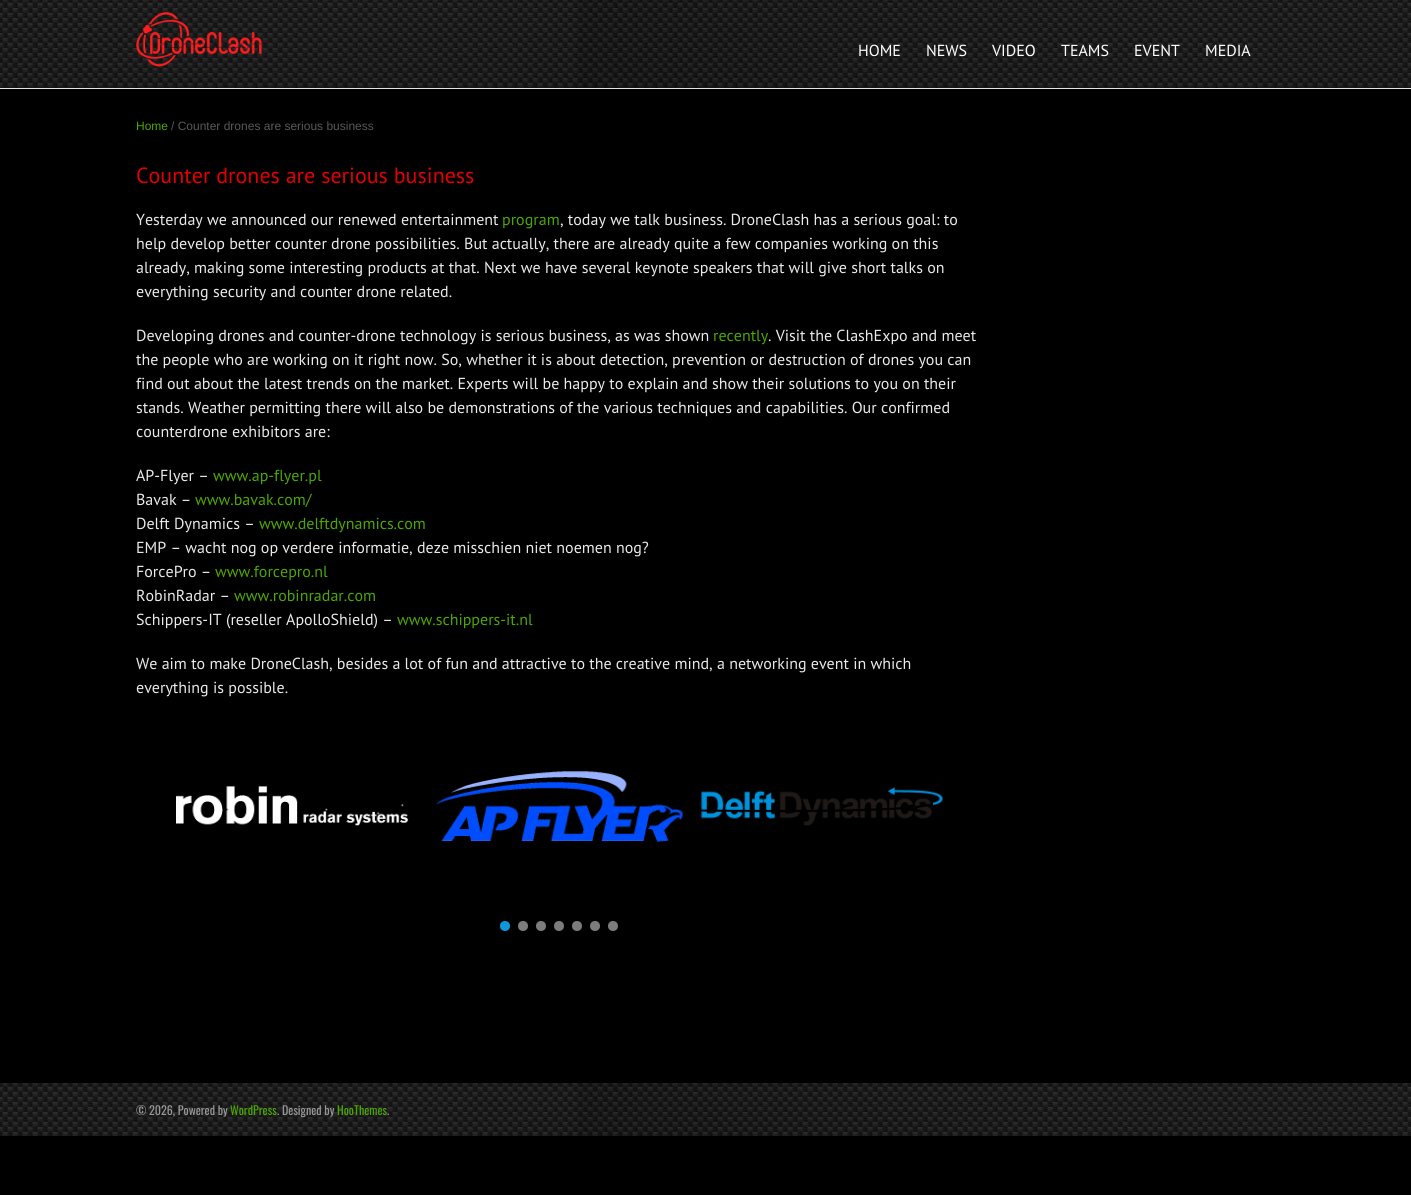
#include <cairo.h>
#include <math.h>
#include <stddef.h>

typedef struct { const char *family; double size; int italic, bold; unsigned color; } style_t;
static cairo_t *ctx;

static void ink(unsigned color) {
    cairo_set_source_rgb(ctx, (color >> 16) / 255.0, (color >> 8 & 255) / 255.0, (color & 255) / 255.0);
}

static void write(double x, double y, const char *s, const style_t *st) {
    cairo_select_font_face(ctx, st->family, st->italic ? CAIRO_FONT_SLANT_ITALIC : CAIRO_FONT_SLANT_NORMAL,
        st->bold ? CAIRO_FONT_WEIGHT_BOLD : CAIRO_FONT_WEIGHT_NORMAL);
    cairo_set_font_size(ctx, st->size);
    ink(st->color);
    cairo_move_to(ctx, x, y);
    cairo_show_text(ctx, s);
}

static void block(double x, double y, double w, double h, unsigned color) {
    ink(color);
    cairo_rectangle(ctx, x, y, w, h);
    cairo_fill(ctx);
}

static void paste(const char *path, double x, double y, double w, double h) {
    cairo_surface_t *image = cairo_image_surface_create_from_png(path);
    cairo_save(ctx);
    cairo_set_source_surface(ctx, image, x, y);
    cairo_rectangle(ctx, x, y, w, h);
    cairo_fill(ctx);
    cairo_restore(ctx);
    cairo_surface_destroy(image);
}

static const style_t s1 = {"PT Sans", 16, 0, 0, 0xffffff};
static const style_t s2 = {"Liberation Sans", 12, 0, 0, 0x4ca702};
static const style_t s3 = {"Liberation Sans", 12, 0, 0, 0x595959};
static const style_t s4 = {"PT Sans", 22, 0, 0, 0xe20000};
static const style_t s5 = {"PT Sans", 16, 0, 0, 0xeaeaea};
static const style_t s6 = {"PT Sans", 16, 0, 0, 0x4ca702};
static const style_t s7 = {"Oswald", 12, 0, 0, 0x999999};
static const style_t s8 = {"Oswald", 12, 0, 0, 0x4ca702};

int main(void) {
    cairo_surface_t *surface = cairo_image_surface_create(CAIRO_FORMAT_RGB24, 1411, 1195);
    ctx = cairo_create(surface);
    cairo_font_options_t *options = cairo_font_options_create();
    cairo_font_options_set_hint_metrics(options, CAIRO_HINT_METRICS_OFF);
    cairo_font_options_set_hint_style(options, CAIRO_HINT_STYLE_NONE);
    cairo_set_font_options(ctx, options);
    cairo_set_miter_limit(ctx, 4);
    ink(0x000000);
    cairo_paint(ctx);
    paste("pic1.png", 0, 0, 1411, 88);
    block(0, 88, 1411, 1, 0xe3e3e3);
    paste("pic2.png", 136, 12, 127, 55);
    write(858, 56, "HOME", &s1);
    write(926, 56, "NEWS", &s1);
    write(992, 56, "VIDEO", &s1);
    write(1061, 56, "TEAMS", &s1);
    write(1134, 56, "EVENT", &s1);
    write(1205, 56, "MEDIA", &s1);
    write(136, 130, "Home", &s2);
    write(171, 130, "/ Counter drones are serious business", &s3);
    write(136, 183, "Counter drones are serious business", &s4);
    write(136, 225, "Yesterday we announced our renewed entertainment", &s5);
    write(502, 225, "program", &s6);
    write(560, 225, ", today we talk business. DroneClash has a serious goal: to", &s5);
    write(136, 249, "help develop better counter drone possibilities. But actually, there are already quite a few companies working on this", &s5);
    write(136, 273, "already, making some interesting products at that. Next we have several keynote speakers that will give short talks on", &s5);
    write(136, 297, "everything security and counter drone related.", &s5);
    write(136, 341, "Developing drones and counter-drone technology is serious business, as was shown", &s5);
    write(713, 341, "recently", &s6);
    write(768, 341, ". Visit the ClashExpo and meet", &s5);
    write(136, 365, "the people who are working on it right now. So, whether it is about detection, prevention or destruction of drones you can", &s5);
    write(136, 389, "find out about the latest trends on the market. Experts will be happy to explain and show their solutions to you on their", &s5);
    write(136, 413, "stands. Weather permitting there will also be demonstrations of the various techniques and capabilities. Our confirmed", &s5);
    write(136, 437, "counterdrone exhibitors are:", &s5);
    write(136, 481, "AP-Flyer –", &s5);
    write(213, 481, "www.ap-flyer.pl", &s6);
    write(136, 505, "Bavak –", &s5);
    write(195, 505, "www.bavak.com/", &s6);
    write(136, 529, "Delft Dynamics –", &s5);
    write(259, 529, "www.delftdynamics.com", &s6);
    write(136, 553, "EMP – wacht nog op verdere informatie, deze misschien niet noemen nog?", &s5);
    write(136, 577, "ForcePro –", &s5);
    write(215, 577, "www.forcepro.nl", &s6);
    write(136, 601, "RobinRadar –", &s5);
    write(234, 601, "www.robinradar.com", &s6);
    write(136, 625, "Schippers-IT (reseller ApolloShield) –", &s5);
    write(397, 625, "www.schippers-it.nl", &s6);
    write(136, 669, "We aim to make DroneClash, besides a lot of fun and attractive to the creative mind, a networking event in which", &s5);
    write(136, 693, "everything is possible.", &s5);
    paste("pic3.png", 176, 786, 233, 40);
    paste("pic4.png", 436, 771, 247, 71);
    paste("pic5.png", 701, 787, 242, 39);
    ink(0x0d98dc);
    cairo_arc(ctx, 505, 926, 5, 0, 2 * M_PI);
    cairo_fill(ctx);
    ink(0x7c7c7c);
    cairo_arc(ctx, 523, 926, 5, 0, 2 * M_PI);
    cairo_fill(ctx);
    cairo_arc(ctx, 541, 926, 5, 0, 2 * M_PI);
    cairo_fill(ctx);
    cairo_arc(ctx, 559, 926, 5, 0, 2 * M_PI);
    cairo_fill(ctx);
    cairo_arc(ctx, 577, 926, 5, 0, 2 * M_PI);
    cairo_fill(ctx);
    cairo_arc(ctx, 595, 926, 5, 0, 2 * M_PI);
    cairo_fill(ctx);
    cairo_arc(ctx, 613, 926, 5, 0, 2 * M_PI);
    cairo_fill(ctx);
    paste("pic6.png", 0, 1083, 1411, 53);
    write(136, 1115, "© 2026, Powered by", &s7);
    write(230, 1115, "WordPress", &s8);
    write(277, 1115, ". Designed by", &s7);
    write(337, 1115, "HooThemes", &s8);
    write(387, 1115, ".", &s7);
    cairo_surface_write_to_png(surface, "screenshot.png");
    cairo_font_options_destroy(options);
    cairo_destroy(ctx);
    cairo_surface_destroy(surface);
    return 0;
}
